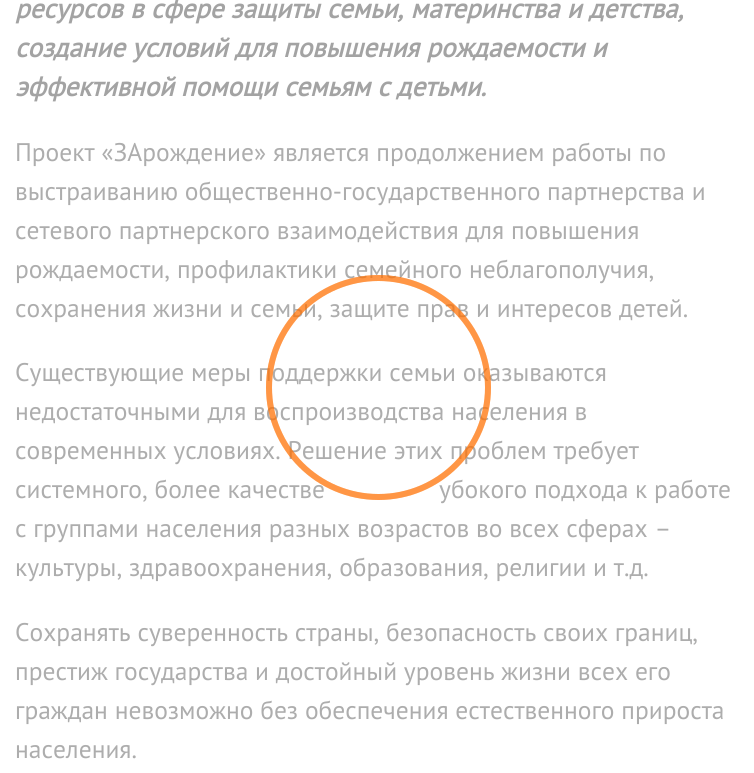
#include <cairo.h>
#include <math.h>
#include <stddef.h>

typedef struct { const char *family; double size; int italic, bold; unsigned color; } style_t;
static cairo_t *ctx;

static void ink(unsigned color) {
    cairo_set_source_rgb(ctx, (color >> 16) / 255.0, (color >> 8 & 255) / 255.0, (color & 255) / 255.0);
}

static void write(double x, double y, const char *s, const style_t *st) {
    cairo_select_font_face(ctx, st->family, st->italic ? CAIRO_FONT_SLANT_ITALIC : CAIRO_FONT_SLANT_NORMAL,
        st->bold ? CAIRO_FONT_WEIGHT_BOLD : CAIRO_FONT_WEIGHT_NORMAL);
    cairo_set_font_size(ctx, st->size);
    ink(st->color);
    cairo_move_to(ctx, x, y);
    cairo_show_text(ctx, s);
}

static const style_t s1 = {"PT Sans", 27, 1, 1, 0xa3a3a3};
static const style_t s2 = {"PT Sans", 25.5, 0, 0, 0xadadad};

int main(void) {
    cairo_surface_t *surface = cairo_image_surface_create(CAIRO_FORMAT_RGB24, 754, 773);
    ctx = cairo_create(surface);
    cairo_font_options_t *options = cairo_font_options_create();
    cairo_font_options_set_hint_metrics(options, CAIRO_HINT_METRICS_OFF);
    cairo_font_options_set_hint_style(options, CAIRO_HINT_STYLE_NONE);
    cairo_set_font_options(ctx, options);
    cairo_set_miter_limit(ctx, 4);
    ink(0xffffff);
    cairo_paint(ctx);
    write(15, 18, "ресурсов в сфере защиты семьи, материнства и детства,", &s1);
    write(15, 57, "создание условий для повышения рождаемости и", &s1);
    write(15, 96, "эффективной помощи семьям с детьми.", &s1);
    write(15, 161, "Проект «ЗАрождение» является продолжением работы по", &s2);
    write(15, 200, "выстраиванию общественно-государственного партнерства и", &s2);
    write(15, 239, "сетевого партнерского взаимодействия для повышения", &s2);
    write(15, 278, "рождаемости, профилактики семейного неблагополучия,", &s2);
    write(15, 317, "сохранения жизни и семьи, защите прав и интересов детей.", &s2);
    write(15, 381, "Существующие меры поддержки семьи оказываются", &s2);
    write(15, 420, "недостаточными для воспроизводства населения в", &s2);
    write(15, 459, "современных условиях. Решение этих проблем требует", &s2);
    write(15, 498, "системного, более качестве", &s2);
    write(439, 498, "убокого подхода к работе", &s2);
    write(15, 537, "с группами населения разных возрастов во всех сферах –", &s2);
    write(15, 576, "культуры, здравоохранения, образования, религии и т.д.", &s2);
    write(15, 641, "Сохранять суверенность страны, безопасность своих границ,", &s2);
    write(15, 680, "престиж государства и достойный уровень жизни всех его", &s2);
    write(15, 719, "граждан невозможно без обеспечения естественного прироста", &s2);
    write(15, 758, "населения.", &s2);
    cairo_new_path(ctx);
    cairo_arc(ctx, 378.5, 387.5, 109.5, 0, 2 * M_PI);
    cairo_set_source_rgba(ctx, 1, 0.439, 0, 0.48);
    cairo_set_line_width(ctx, 6);
    cairo_stroke(ctx);
    cairo_arc(ctx, 378.5, 387.5, 109.5, 0, 2 * M_PI);
    cairo_stroke(ctx);
    cairo_surface_write_to_png(surface, "screenshot.png");
    cairo_font_options_destroy(options);
    cairo_destroy(ctx);
    cairo_surface_destroy(surface);
    return 0;
}
